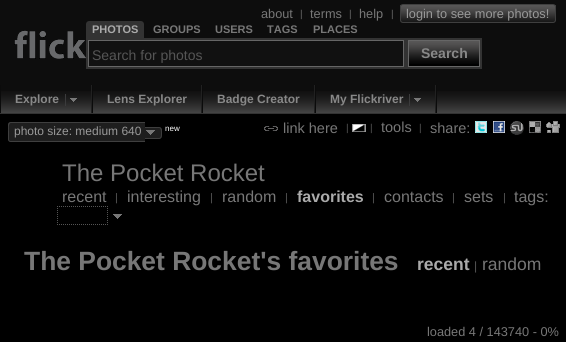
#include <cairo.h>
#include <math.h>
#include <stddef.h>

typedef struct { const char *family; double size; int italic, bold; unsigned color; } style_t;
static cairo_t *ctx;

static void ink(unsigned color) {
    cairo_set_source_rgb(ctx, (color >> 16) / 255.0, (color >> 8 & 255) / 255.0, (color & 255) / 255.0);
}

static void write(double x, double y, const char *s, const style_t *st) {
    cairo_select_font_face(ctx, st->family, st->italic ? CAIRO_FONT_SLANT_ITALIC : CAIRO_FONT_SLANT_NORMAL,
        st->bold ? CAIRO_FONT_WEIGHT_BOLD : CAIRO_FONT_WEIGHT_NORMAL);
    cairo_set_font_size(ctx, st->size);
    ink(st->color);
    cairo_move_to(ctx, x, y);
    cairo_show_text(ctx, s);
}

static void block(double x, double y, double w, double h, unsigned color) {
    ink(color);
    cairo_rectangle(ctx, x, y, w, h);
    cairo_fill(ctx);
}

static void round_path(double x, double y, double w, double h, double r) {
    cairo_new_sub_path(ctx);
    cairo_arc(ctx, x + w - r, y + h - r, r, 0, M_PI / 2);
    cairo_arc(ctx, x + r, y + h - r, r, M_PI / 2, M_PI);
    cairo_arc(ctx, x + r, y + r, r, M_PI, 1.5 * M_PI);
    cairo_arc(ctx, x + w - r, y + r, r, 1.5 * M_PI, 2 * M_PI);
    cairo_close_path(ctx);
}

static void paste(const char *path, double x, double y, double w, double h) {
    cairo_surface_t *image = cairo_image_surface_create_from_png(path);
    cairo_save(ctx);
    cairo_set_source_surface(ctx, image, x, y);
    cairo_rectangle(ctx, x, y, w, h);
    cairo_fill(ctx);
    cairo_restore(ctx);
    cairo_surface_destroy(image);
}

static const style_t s1 = {"Liberation Sans", 12.75, 0, 0, 0x777777};
static const style_t s2 = {"Liberation Sans", 10, 0, 0, 0x666666};
static const style_t s3 = {"Liberation Sans", 12.75, 0, 0, 0x999999};
static const style_t s4 = {"Liberation Sans", 11, 0, 1, 0xaaaaaa};
static const style_t s5 = {"Liberation Sans", 11, 0, 1, 0x777777};
static const style_t s6 = {"Liberation Sans", 14, 0, 0, 0x555555};
static const style_t s7 = {"Liberation Sans", 14, 0, 1, 0x888888};
static const style_t s8 = {"Liberation Sans", 12, 0, 1, 0x888888};
static const style_t s9 = {"Liberation Sans", 12, 0, 0, 0x999999};
static const style_t s10 = {"Liberation Sans", 8, 0, 0, 0xffffff};
static const style_t s11 = {"Liberation Sans", 14.5, 0, 0, 0x777777};
static const style_t s12 = {"Liberation Sans", 10, 0, 0, 0x555555};
static const style_t s13 = {"Liberation Sans", 24, 0, 0, 0x777777};
static const style_t s14 = {"Liberation Sans", 16, 0, 0, 0x777777};
static const style_t s15 = {"Liberation Sans", 11, 0, 0, 0x555555};
static const style_t s16 = {"Liberation Sans", 16, 0, 1, 0xaaaaaa};
static const style_t s17 = {"Liberation Sans", 26.4, 0, 1, 0x777777};
static const style_t s18 = {"Liberation Sans", 17.5, 0, 1, 0xaaaaaa};
static const style_t s19 = {"Liberation Sans", 12, 0, 0, 0x555555};
static const style_t s20 = {"Liberation Sans", 17.5, 0, 0, 0x777777};

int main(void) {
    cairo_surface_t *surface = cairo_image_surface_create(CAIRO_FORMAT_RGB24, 566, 342);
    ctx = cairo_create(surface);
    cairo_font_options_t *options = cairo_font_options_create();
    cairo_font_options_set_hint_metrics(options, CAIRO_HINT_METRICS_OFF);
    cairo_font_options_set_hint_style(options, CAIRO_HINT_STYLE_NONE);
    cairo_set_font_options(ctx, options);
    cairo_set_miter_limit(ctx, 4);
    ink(0x000000);
    cairo_paint(ctx);
    block(0, 0, 566, 85, 0x0d0d0d);
    write(261, 18, "about", &s1);
    write(359, 18, "help", &s1);
    paste("pic1.png", 400, 5, 156, 18);
    write(300, 17, "|", &s2);
    write(310, 18, "terms", &s1);
    write(349, 17, "|", &s2);
    write(391, 17, "|", &s2);
    round_path(400.5, 4.5, 155, 18, 2.5);
    ink(0x3f3f3f);
    cairo_set_line_width(ctx, 1);
    cairo_stroke(ctx);
    write(406, 18, "login to see more photos!", &s3);
    paste("pic2.png", 14, 30, 72, 29);
    ink(0x333333);
    cairo_new_path(ctx);
    cairo_move_to(ctx, 89, 21);
    cairo_line_to(ctx, 141, 21);
    cairo_curve_to(ctx, 142.5, 21, 144, 22.5, 144, 24);
    cairo_line_to(ctx, 144, 38);
    cairo_line_to(ctx, 86, 38);
    cairo_line_to(ctx, 86, 24);
    cairo_curve_to(ctx, 86, 22.5, 87.5, 21, 89, 21);
    cairo_close_path(ctx);
    cairo_fill(ctx);
    write(92, 33, "PHOTOS", &s4);
    write(153, 33, "GROUPS", &s5);
    write(215, 33, "USERS", &s5);
    write(267, 33, "TAGS", &s5);
    write(313, 33, "PLACES", &s5);
    block(86, 38, 396, 31, 0x333333);
    ink(0x111111);
    cairo_rectangle(ctx, 88.5, 40.5, 315, 26);
    cairo_fill_preserve(ctx);
    ink(0x666666);
    cairo_stroke(ctx);
    write(92, 60, "Search for photos", &s6);
    block(409, 64, 70, 2, 0x000000);
    cairo_rectangle(ctx, 408.5, 40.5, 71, 26);
    ink(0x666666);
    cairo_stroke(ctx);
    paste("pic3.png", 409, 41, 70, 23);
    write(421, 58, "Search", &s7);
    block(1, 85, 565, 6, 0x0d0d0d);
    paste("pic4.png", 1, 91, 565, 22);
    block(0, 113, 566, 1, 0x333333);
    block(436, 85, 1, 28, 0x0b0b0b);
    block(91, 85, 1, 28, 0x212121);
    block(0, 85, 1, 28, 0x0b0b0b);
    write(15, 103, "Explore", &s8);
    paste("pic5.png", 65, 94, 12, 12);
    block(201, 85, 1, 28, 0x212121);
    block(92, 85, 1, 28, 0x0b0b0b);
    write(107, 103, "Lens Explorer", &s8);
    block(314, 85, 1, 28, 0x212121);
    block(202, 85, 1, 28, 0x0b0b0b);
    write(217, 103, "Badge Creator", &s8);
    block(435, 85, 1, 28, 0x212121);
    block(315, 85, 1, 28, 0x0b0b0b);
    write(330, 103, "My Flickriver", &s8);
    paste("pic5.png", 409, 94, 12, 12);
    ink(0x1e1e1e);
    cairo_new_path(ctx);
    cairo_move_to(ctx, 11, 122);
    cairo_line_to(ctx, 141, 122);
    cairo_line_to(ctx, 141, 142);
    cairo_line_to(ctx, 11, 142);
    cairo_curve_to(ctx, 9.5, 142, 8, 140.5, 8, 139);
    cairo_line_to(ctx, 8, 125);
    cairo_curve_to(ctx, 8, 123.5, 9.5, 122, 11, 122);
    cairo_close_path(ctx);
    cairo_fill(ctx);
    ink(0x3f3f3f);
    cairo_set_fill_rule(ctx, CAIRO_FILL_RULE_EVEN_ODD);
    cairo_new_path(ctx);
    cairo_move_to(ctx, 11, 122);
    cairo_line_to(ctx, 141, 122);
    cairo_line_to(ctx, 141, 142);
    cairo_line_to(ctx, 11, 142);
    cairo_curve_to(ctx, 9, 142, 8, 141, 8, 139);
    cairo_line_to(ctx, 8, 125);
    cairo_curve_to(ctx, 8, 123, 9, 122, 11, 122);
    cairo_close_path(ctx);
    cairo_move_to(ctx, 11, 123);
    cairo_line_to(ctx, 141, 123);
    cairo_line_to(ctx, 141, 141);
    cairo_line_to(ctx, 10, 141);
    cairo_line_to(ctx, 9, 140);
    cairo_line_to(ctx, 9, 132);
    cairo_curve_to(ctx, 9, 130, 8, 123, 11, 123);
    cairo_close_path(ctx);
    cairo_fill(ctx);
    write(14, 135, "photo size: medium 640", &s9);
    block(141, 122, 4, 20, 0x1e1e1e);
    block(141, 122, 4, 1, 0x3f3f3f);
    block(141, 141, 4, 1, 0x3f3f3f);
    ink(0x1e1e1e);
    cairo_new_path(ctx);
    cairo_move_to(ctx, 145, 127);
    cairo_line_to(ctx, 159, 127);
    cairo_curve_to(ctx, 160.5, 127, 162, 128.5, 162, 130);
    cairo_line_to(ctx, 162, 136);
    cairo_curve_to(ctx, 162, 137.5, 160.5, 139, 159, 139);
    cairo_line_to(ctx, 145, 139);
    cairo_close_path(ctx);
    cairo_fill(ctx);
    ink(0x3f3f3f);
    cairo_new_path(ctx);
    cairo_move_to(ctx, 145, 127);
    cairo_line_to(ctx, 154.5, 127);
    cairo_curve_to(ctx, 161, 127, 162, 126.5, 162, 133);
    cairo_curve_to(ctx, 162, 139.5, 161, 139, 154.5, 139);
    cairo_line_to(ctx, 145, 139);
    cairo_close_path(ctx);
    cairo_move_to(ctx, 145, 128);
    cairo_line_to(ctx, 154.5, 128);
    cairo_curve_to(ctx, 160.5, 128, 161, 127, 161, 133);
    cairo_curve_to(ctx, 161, 139, 160.5, 138, 154.5, 138);
    cairo_line_to(ctx, 145, 138);
    cairo_close_path(ctx);
    cairo_fill(ctx);
    write(165, 131, "new", &s10);
    paste("pic6.png", 146, 130, 9, 5);
    paste("pic7.png", 264, 126, 14, 5);
    write(283, 133, "link here", &s11);
    write(346, 131, "|", &s12);
    paste("pic8.png", 352, 124, 14, 8);
    write(370, 131, "|", &s12);
    write(381, 132, "tools", &s11);
    write(419, 131, "|", &s12);
    write(430, 133, "share:", &s11);
    paste("pic9.png", 475, 121, 12, 12);
    paste("pic10.png", 493, 121, 12, 12);
    paste("pic11.png", 510, 121, 14, 14);
    paste("pic12.png", 529, 121, 12, 12);
    paste("pic13.png", 546, 121, 14, 12);
    write(62, 181, "The Pocket Rocket", &s13);
    write(62, 202, "recent", &s14);
    write(115, 201, "|", &s15);
    write(127, 202, "interesting", &s14);
    write(210, 201, "|", &s15);
    write(222, 202, "random", &s14);
    write(285, 201, "|", &s15);
    write(297, 202, "favorites", &s16);
    write(372, 201, "|", &s15);
    write(384, 202, "contacts", &s14);
    write(452, 201, "|", &s15);
    write(464, 202, "sets", &s14);
    write(503, 201, "|", &s15);
    write(514, 202, "tags:", &s14);
    cairo_new_path(ctx);
    cairo_move_to(ctx, 57, 206.5);
    cairo_line_to(ctx, 108, 206.5);
    cairo_move_to(ctx, 107.5, 206);
    cairo_line_to(ctx, 107.5, 225);
    cairo_move_to(ctx, 57, 224.5);
    cairo_line_to(ctx, 108, 224.5);
    cairo_move_to(ctx, 57.5, 206);
    cairo_line_to(ctx, 57.5, 225);
    ink(0x555555);
    cairo_set_dash(ctx, (double[]){1, 1}, 2, 0);
    cairo_stroke(ctx);
    paste("pic14.png", 113, 214, 9, 5);
    write(24, 270, "The Pocket Rocket's favorites", &s17);
    write(417, 270, "recent", &s18);
    write(474, 270, "|", &s19);
    write(482, 270, "random", &s20);
    write(427, 336, "loaded 4 / 143740 - 0%", &s1);
    cairo_surface_write_to_png(surface, "screenshot.png");
    cairo_font_options_destroy(options);
    cairo_destroy(ctx);
    cairo_surface_destroy(surface);
    return 0;
}
